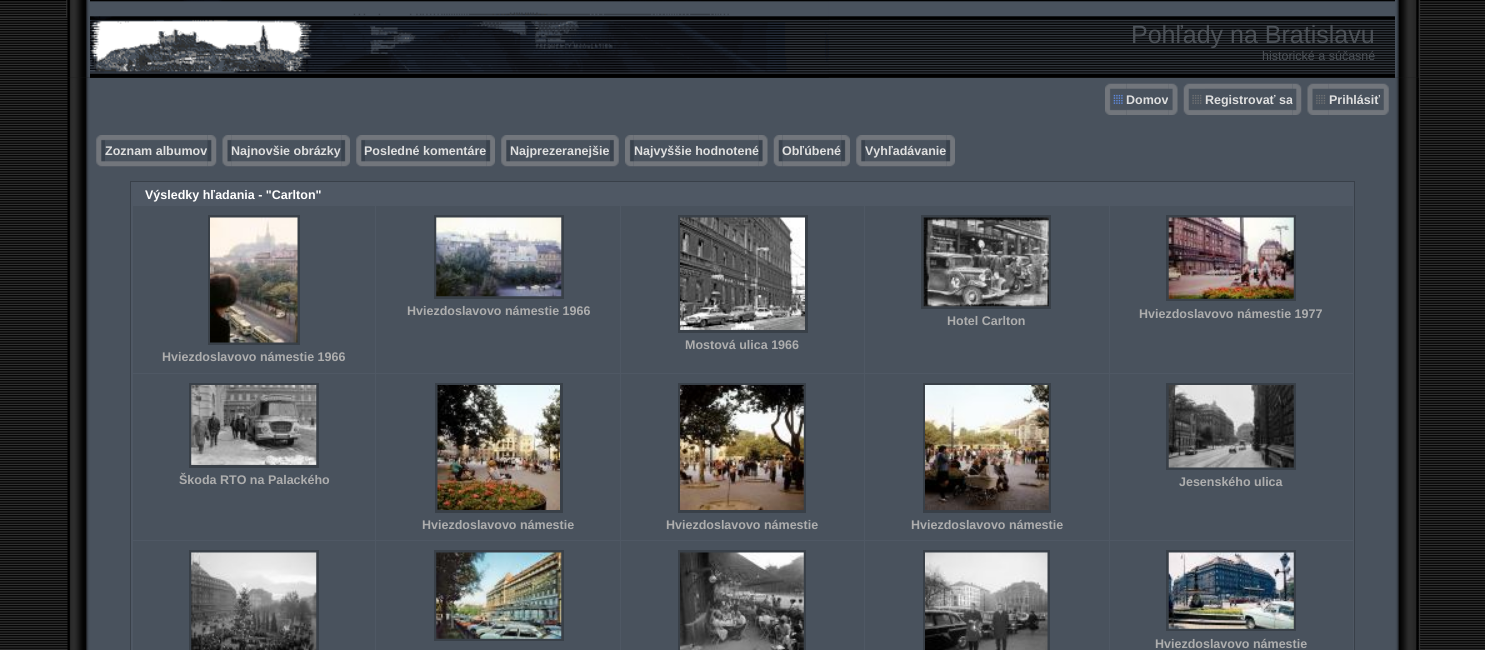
#include <cairo.h>
#include <math.h>
#include <stddef.h>

typedef struct { const char *family; double size; int italic, bold; unsigned color; } style_t;
static cairo_t *ctx;

static void ink(unsigned color) {
    cairo_set_source_rgb(ctx, (color >> 16) / 255.0, (color >> 8 & 255) / 255.0, (color & 255) / 255.0);
}

static void write(double x, double y, const char *s, const style_t *st) {
    cairo_select_font_face(ctx, st->family, st->italic ? CAIRO_FONT_SLANT_ITALIC : CAIRO_FONT_SLANT_NORMAL,
        st->bold ? CAIRO_FONT_WEIGHT_BOLD : CAIRO_FONT_WEIGHT_NORMAL);
    cairo_set_font_size(ctx, st->size);
    ink(st->color);
    cairo_move_to(ctx, x, y);
    cairo_show_text(ctx, s);
}

static void block(double x, double y, double w, double h, unsigned color) {
    ink(color);
    cairo_rectangle(ctx, x, y, w, h);
    cairo_fill(ctx);
}

static void paste(const char *path, double x, double y, double w, double h) {
    cairo_surface_t *image = cairo_image_surface_create_from_png(path);
    cairo_save(ctx);
    cairo_set_source_surface(ctx, image, x, y);
    cairo_rectangle(ctx, x, y, w, h);
    cairo_fill(ctx);
    cairo_restore(ctx);
    cairo_surface_destroy(image);
}

static const style_t s1 = {"Liberation Sans", 25, 0, 0, 0x4c5157};
static const style_t s2 = {"Liberation Sans", 12.5, 0, 0, 0x4c5157};
static const style_t s3 = {"Liberation Sans", 12.5, 0, 1, 0xdfdfdf};
static const style_t s4 = {"Liberation Sans", 12.5, 0, 1, 0xffffff};
static const style_t s5 = {"Liberation Sans", 12.5, 0, 1, 0xaeaeae};

int main(void) {
    cairo_surface_t *surface = cairo_image_surface_create(CAIRO_FORMAT_RGB24, 1485, 650);
    ctx = cairo_create(surface);
    cairo_font_options_t *options = cairo_font_options_create();
    cairo_font_options_set_hint_metrics(options, CAIRO_HINT_METRICS_OFF);
    cairo_font_options_set_hint_style(options, CAIRO_HINT_STYLE_NONE);
    cairo_set_font_options(ctx, options);
    cairo_set_miter_limit(ctx, 4);
    ink(0xffffff);
    cairo_paint(ctx);
    paste("pic1.png", 0, 0, 1485, 650);
    paste("pic3.png", 67, 0, 23, 78);
    paste("pic2.png", 0, 0, 68, 18);
    paste("pic4.png", 67, 0, 1, 18);
    paste("pic5.png", 90, 0, 1305, 78);
    paste("pic6.png", 90, 0, 739, 78);
    write(1131, 43, "Pohľady na Bratislavu", &s1);
    write(1262, 60, "historické a súčasné", &s2);
    paste("pic7.png", 1395, 0, 24, 78);
    paste("pic9.png", 1418, 0, 3, 649);
    paste("pic8.png", 1418, 0, 1, 18);
    paste("pic10.png", 1418, 0, 67, 18);
    paste("pic11.png", 67, 77, 23, 573);
    block(90, 78, 1305, 572, 0x49525d);
    paste("pic12.png", 1105, 83, 21, 32);
    paste("pic13.png", 1126, 83, 43, 32);
    write(1126, 104, "Domov", &s3);
    paste("pic14.png", 1168, 83, 10, 32);
    paste("pic15.png", 1183, 83, 22, 32);
    paste("pic16.png", 1205, 83, 88, 32);
    write(1205, 104, "Registrovať sa", &s3);
    paste("pic17.png", 1292, 83, 10, 32);
    paste("pic19.png", 1328, 83, 52, 32);
    paste("pic18.png", 1307, 83, 22, 32);
    write(1329, 104, "Prihlásiť", &s3);
    paste("pic20.png", 1380, 83, 9, 32);
    paste("pic21.png", 96, 135, 9, 32);
    paste("pic22.png", 105, 135, 103, 32);
    write(105, 155, "Zoznam albumov", &s3);
    paste("pic23.png", 207, 135, 10, 32);
    paste("pic25.png", 231, 135, 111, 32);
    paste("pic24.png", 222, 135, 10, 32);
    write(231, 155, "Najnovšie obrázky", &s3);
    paste("pic26.png", 341, 135, 9, 32);
    paste("pic21.png", 356, 135, 9, 32);
    paste("pic27.png", 365, 135, 122, 32);
    write(364, 155, "Posledné komentáre", &s3);
    paste("pic28.png", 486, 135, 9, 32);
    paste("pic21.png", 501, 135, 9, 32);
    paste("pic29.png", 510, 135, 100, 32);
    write(510, 155, "Najprezeranejšie", &s3);
    paste("pic30.png", 610, 135, 9, 32);
    paste("pic32.png", 633, 135, 126, 32);
    paste("pic31.png", 625, 135, 9, 32);
    write(634, 155, "Najvyššie hodnotené", &s3);
    paste("pic33.png", 758, 135, 10, 32);
    paste("pic35.png", 782, 135, 60, 32);
    paste("pic34.png", 773, 135, 10, 32);
    write(782, 155, "Obľúbené", &s3);
    paste("pic26.png", 841, 135, 9, 32);
    paste("pic21.png", 856, 135, 9, 32);
    paste("pic36.png", 865, 135, 82, 32);
    write(865, 155, "Vyhľadávanie", &s3);
    paste("pic26.png", 946, 135, 9, 32);
    ink(0x4f5864);
    cairo_rectangle(ctx, 130.5, 181.5, 1224, 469);
    cairo_fill_preserve(ctx);
    ink(0x394049);
    cairo_set_line_width(ctx, 1);
    cairo_stroke(ctx);
    write(145, 199, "Výsledky hľadania - \"Carlton\"", &s4);
    block(376, 206, 244, 167, 0x49525d);
    cairo_rectangle(ctx, 435.5, 216.5, 127, 81);
    ink(0x394048);
    cairo_set_line_width(ctx, 3);
    cairo_stroke(ctx);
    paste("pic37.png", 436, 217, 126, 80);
    write(407, 315, "Hviezdoslavovo námestie 1966", &s5);
    block(1110, 206, 243, 167, 0x49525d);
    cairo_rectangle(ctx, 1167.5, 216.5, 127, 83);
    ink(0x394048);
    cairo_stroke(ctx);
    paste("pic38.png", 1168, 217, 126, 82);
    write(1139, 318, "Hviezdoslavovo námestie 1977", &s5);
    block(865, 206, 244, 167, 0x49525d);
    cairo_rectangle(ctx, 922.5, 216.5, 127, 91);
    ink(0x394048);
    cairo_stroke(ctx);
    paste("pic39.png", 923, 217, 126, 90);
    write(947, 325, "Hotel Carlton", &s5);
    block(621, 206, 243, 167, 0x49525d);
    cairo_rectangle(ctx, 679.5, 216.5, 127, 115);
    ink(0x394048);
    cairo_stroke(ctx);
    paste("pic40.png", 680, 217, 125, 113);
    write(685, 349, "Mostová ulica 1966", &s5);
    block(133, 206, 242, 167, 0x49525d);
    cairo_rectangle(ctx, 209.5, 216.5, 89, 127);
    ink(0x394048);
    cairo_stroke(ctx);
    paste("pic41.png", 210, 217, 88, 126);
    write(162, 361, "Hviezdoslavovo námestie 1966", &s5);
    block(133, 374, 242, 166, 0x49525d);
    cairo_rectangle(ctx, 190.5, 384.5, 127, 82);
    ink(0x394048);
    cairo_stroke(ctx);
    paste("pic42.png", 191, 385, 126, 80);
    write(179, 484, "Škoda RTO na Palackého", &s5);
    block(1110, 374, 243, 166, 0x49525d);
    cairo_rectangle(ctx, 1167.5, 384.5, 127, 84);
    ink(0x394048);
    cairo_stroke(ctx);
    paste("pic43.png", 1168, 385, 126, 83);
    write(1179, 486, "Jesenského ulica", &s5);
    block(376, 374, 244, 166, 0x49525d);
    cairo_rectangle(ctx, 436.5, 384.5, 125, 127);
    ink(0x394048);
    cairo_stroke(ctx);
    paste("pic44.png", 437, 385, 123, 125);
    write(422, 529, "Hviezdoslavovo námestie", &s5);
    block(621, 374, 243, 166, 0x49525d);
    cairo_rectangle(ctx, 679.5, 384.5, 125, 127);
    ink(0x394048);
    cairo_stroke(ctx);
    paste("pic45.png", 680, 385, 124, 125);
    write(666, 529, "Hviezdoslavovo námestie", &s5);
    block(865, 374, 244, 166, 0x49525d);
    cairo_rectangle(ctx, 924.5, 384.5, 125, 127);
    ink(0x394048);
    cairo_stroke(ctx);
    paste("pic46.png", 925, 385, 124, 125);
    write(911, 529, "Hviezdoslavovo námestie", &s5);
    block(133, 541, 242, 109, 0x49525d);
    cairo_rectangle(ctx, 190.5, 551.5, 127, 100);
    ink(0x394048);
    cairo_stroke(ctx);
    paste("pic47.png", 191, 552, 126, 98);
    block(376, 541, 244, 109, 0x49525d);
    cairo_rectangle(ctx, 435.5, 551.5, 127, 88);
    ink(0x394048);
    cairo_stroke(ctx);
    paste("pic48.png", 436, 552, 126, 87);
    block(621, 541, 243, 109, 0x49525d);
    cairo_rectangle(ctx, 679.5, 551.5, 125, 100);
    ink(0x394048);
    cairo_stroke(ctx);
    paste("pic49.png", 680, 552, 124, 98);
    block(865, 541, 244, 109, 0x49525d);
    cairo_rectangle(ctx, 924.5, 551.5, 124, 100);
    ink(0x394048);
    cairo_stroke(ctx);
    paste("pic50.png", 925, 552, 123, 98);
    block(1110, 541, 243, 109, 0x49525d);
    cairo_rectangle(ctx, 1167.5, 551.5, 127, 78);
    ink(0x394048);
    cairo_stroke(ctx);
    paste("pic51.png", 1168, 552, 126, 77);
    write(1155, 648, "Hviezdoslavovo námestie", &s5);
    paste("pic52.png", 1395, 77, 24, 573);
    cairo_surface_write_to_png(surface, "screenshot.png");
    cairo_font_options_destroy(options);
    cairo_destroy(ctx);
    cairo_surface_destroy(surface);
    return 0;
}
